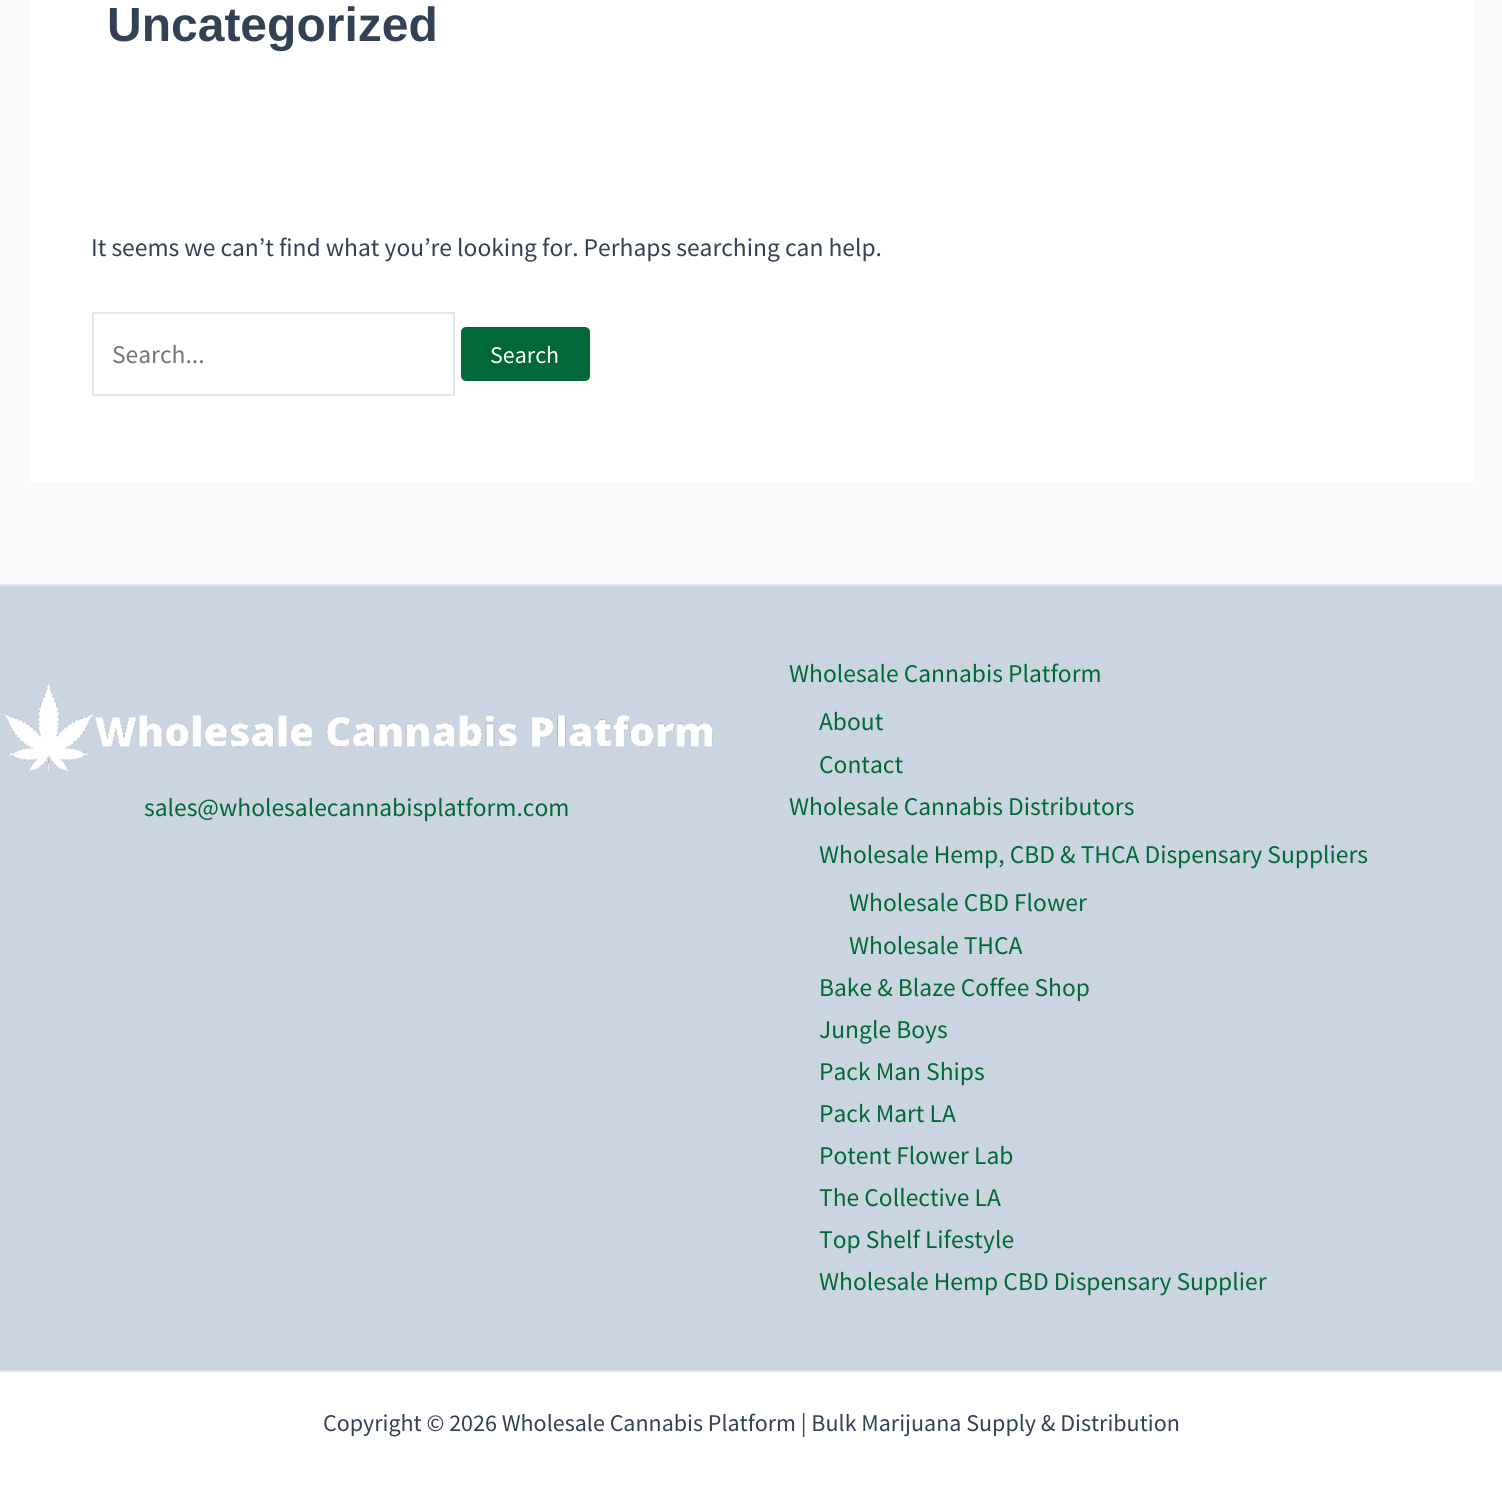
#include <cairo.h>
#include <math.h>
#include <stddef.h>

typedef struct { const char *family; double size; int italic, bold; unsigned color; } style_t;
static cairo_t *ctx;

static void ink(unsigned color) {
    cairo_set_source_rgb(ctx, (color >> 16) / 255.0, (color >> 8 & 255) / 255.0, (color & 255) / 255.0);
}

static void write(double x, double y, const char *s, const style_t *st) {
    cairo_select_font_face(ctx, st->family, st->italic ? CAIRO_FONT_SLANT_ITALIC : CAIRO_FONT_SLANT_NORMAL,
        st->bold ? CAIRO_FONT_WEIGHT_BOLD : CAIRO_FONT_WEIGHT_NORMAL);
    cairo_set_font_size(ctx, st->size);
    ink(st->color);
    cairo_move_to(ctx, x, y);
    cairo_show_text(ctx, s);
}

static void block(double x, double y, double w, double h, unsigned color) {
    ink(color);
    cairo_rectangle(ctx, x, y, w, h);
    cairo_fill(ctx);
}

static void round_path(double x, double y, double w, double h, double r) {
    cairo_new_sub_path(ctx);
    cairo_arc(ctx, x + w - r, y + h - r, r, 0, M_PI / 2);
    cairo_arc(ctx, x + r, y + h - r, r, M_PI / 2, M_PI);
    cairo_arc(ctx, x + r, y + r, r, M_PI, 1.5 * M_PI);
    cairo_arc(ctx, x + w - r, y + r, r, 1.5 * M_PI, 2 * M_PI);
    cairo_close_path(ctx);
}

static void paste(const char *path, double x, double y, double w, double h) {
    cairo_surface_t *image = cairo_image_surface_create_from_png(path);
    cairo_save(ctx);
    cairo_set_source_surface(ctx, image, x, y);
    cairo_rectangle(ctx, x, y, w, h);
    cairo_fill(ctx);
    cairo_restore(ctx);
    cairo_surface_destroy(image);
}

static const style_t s1 = {"Liberation Sans", 48, 0, 1, 0x334155};
static const style_t s2 = {"Source Sans Pro", 25.5, 0, 0, 0x334155};
static const style_t s3 = {"Source Sans Pro", 25.5, 0, 0, 0x757575};
static const style_t s4 = {"Source Sans Pro", 24, 0, 0, 0xffffff};
static const style_t s5 = {"Source Sans Pro", 25.5, 0, 0, 0x016837};
static const style_t s6 = {"Source Sans Pro", 24, 0, 0, 0x334155};

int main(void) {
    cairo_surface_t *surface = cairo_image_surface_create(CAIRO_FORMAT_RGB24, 1502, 1491);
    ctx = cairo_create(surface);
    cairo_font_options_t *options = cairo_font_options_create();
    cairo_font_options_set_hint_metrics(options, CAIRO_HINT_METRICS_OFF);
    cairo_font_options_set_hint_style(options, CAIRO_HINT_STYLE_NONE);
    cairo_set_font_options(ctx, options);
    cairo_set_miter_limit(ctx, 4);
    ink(0xf9fafb);
    cairo_paint(ctx);
    block(30, 0, 1443, 482, 0xffffff);
    write(107, 41, "Uncategorized", &s1);
    write(91, 256, "It seems we can’t find what you’re looking for. Perhaps searching can help.", &s2);
    cairo_rectangle(ctx, 93, 313, 361, 82);
    ink(0xe2e8f0);
    cairo_stroke(ctx);
    write(112, 363, "Search...", &s3);
    ink(0x016837);
    round_path(461, 327, 129, 54, 5);
    cairo_fill(ctx);
    write(490, 363, "Search", &s4);
    block(0, 586, 1502, 784, 0xcbd5e1);
    block(0, 584, 1502, 2, 0xe2e8f0);
    paste("pic1.png", 3, 683, 710, 89);
    write(144, 816, "sales@wholesalecannabisplatform.com", &s5);
    write(789, 682, "Wholesale Cannabis Platform", &s5);
    write(819, 730, "About", &s5);
    write(819, 773, "Contact", &s5);
    write(789, 815, "Wholesale Cannabis Distributors", &s5);
    write(819, 863, "Wholesale Hemp, CBD & THCA Dispensary Suppliers", &s5);
    write(849, 911, "Wholesale CBD Flower", &s5);
    write(849, 954, "Wholesale THCA", &s5);
    write(819, 996, "Bake & Blaze Coffee Shop", &s5);
    write(819, 1038, "Jungle Boys", &s5);
    write(819, 1080, "Pack Man Ships", &s5);
    write(819, 1122, "Pack Mart LA", &s5);
    write(819, 1164, "Potent Flower Lab", &s5);
    write(819, 1206, "The Collective LA", &s5);
    write(819, 1248, "Top Shelf Lifestyle", &s5);
    write(819, 1290, "Wholesale Hemp CBD Dispensary Supplier", &s5);
    block(0, 1372, 1502, 119, 0xffffff);
    block(0, 1370, 1502, 2, 0xe2e8f0);
    write(323, 1431, "Copyright © 2026 Wholesale Cannabis Platform | Bulk Marijuana Supply & Distribution", &s6);
    cairo_surface_write_to_png(surface, "screenshot.png");
    cairo_font_options_destroy(options);
    cairo_destroy(ctx);
    cairo_surface_destroy(surface);
    return 0;
}
